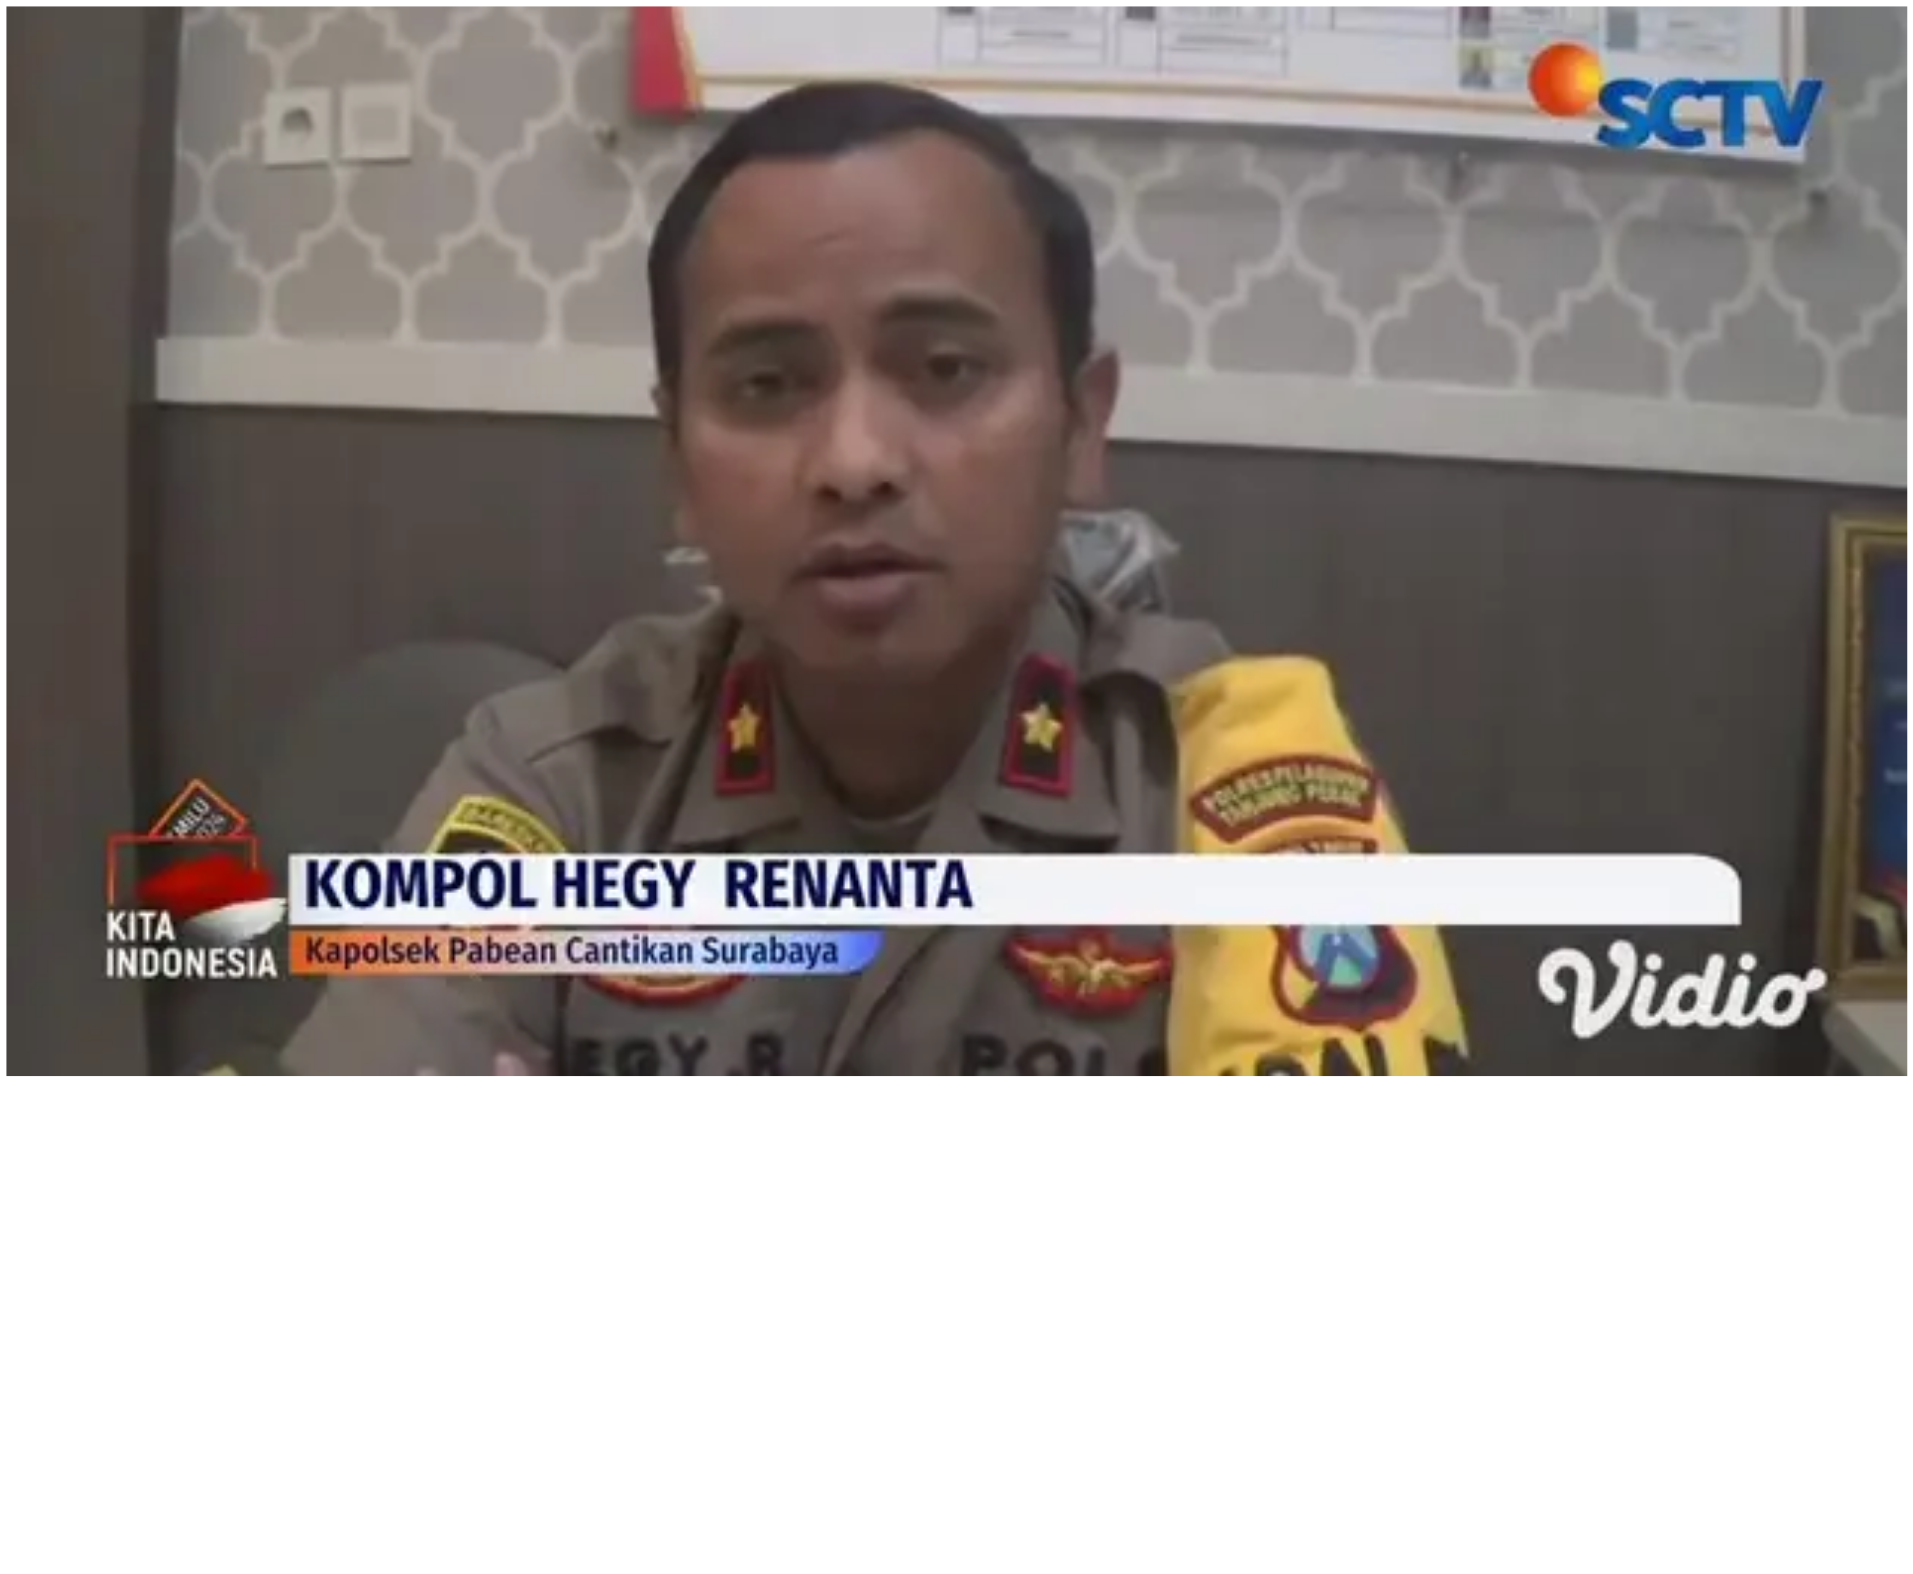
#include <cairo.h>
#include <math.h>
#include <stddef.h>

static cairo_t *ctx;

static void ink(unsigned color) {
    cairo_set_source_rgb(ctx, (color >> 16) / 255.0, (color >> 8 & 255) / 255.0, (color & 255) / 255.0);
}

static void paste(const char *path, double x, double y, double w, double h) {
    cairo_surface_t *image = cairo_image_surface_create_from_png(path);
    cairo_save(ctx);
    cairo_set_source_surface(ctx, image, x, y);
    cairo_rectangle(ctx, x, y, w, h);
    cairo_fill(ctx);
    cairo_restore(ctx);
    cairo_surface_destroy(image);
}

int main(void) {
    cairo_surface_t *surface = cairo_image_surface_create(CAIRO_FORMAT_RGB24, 1913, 1574);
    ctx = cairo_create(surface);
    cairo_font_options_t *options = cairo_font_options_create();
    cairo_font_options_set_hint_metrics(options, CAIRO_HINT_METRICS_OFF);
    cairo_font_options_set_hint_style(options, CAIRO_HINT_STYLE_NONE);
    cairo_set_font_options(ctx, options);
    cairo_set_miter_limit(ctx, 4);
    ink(0xffffff);
    cairo_paint(ctx);
    paste("pic1.png", 6, 6, 1902, 1071);
    cairo_surface_write_to_png(surface, "screenshot.png");
    cairo_font_options_destroy(options);
    cairo_destroy(ctx);
    cairo_surface_destroy(surface);
    return 0;
}
